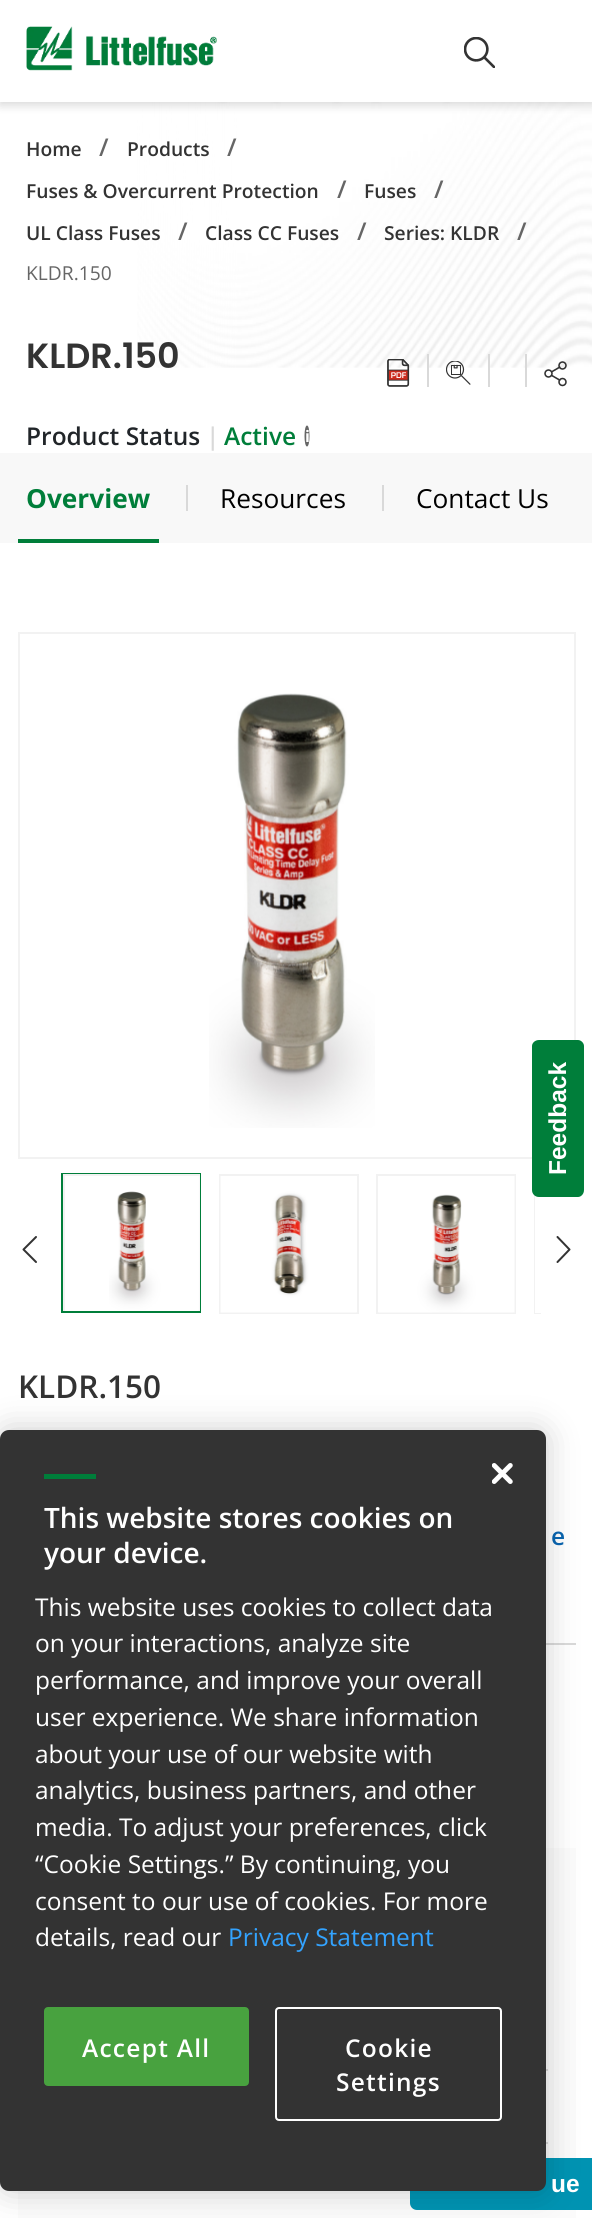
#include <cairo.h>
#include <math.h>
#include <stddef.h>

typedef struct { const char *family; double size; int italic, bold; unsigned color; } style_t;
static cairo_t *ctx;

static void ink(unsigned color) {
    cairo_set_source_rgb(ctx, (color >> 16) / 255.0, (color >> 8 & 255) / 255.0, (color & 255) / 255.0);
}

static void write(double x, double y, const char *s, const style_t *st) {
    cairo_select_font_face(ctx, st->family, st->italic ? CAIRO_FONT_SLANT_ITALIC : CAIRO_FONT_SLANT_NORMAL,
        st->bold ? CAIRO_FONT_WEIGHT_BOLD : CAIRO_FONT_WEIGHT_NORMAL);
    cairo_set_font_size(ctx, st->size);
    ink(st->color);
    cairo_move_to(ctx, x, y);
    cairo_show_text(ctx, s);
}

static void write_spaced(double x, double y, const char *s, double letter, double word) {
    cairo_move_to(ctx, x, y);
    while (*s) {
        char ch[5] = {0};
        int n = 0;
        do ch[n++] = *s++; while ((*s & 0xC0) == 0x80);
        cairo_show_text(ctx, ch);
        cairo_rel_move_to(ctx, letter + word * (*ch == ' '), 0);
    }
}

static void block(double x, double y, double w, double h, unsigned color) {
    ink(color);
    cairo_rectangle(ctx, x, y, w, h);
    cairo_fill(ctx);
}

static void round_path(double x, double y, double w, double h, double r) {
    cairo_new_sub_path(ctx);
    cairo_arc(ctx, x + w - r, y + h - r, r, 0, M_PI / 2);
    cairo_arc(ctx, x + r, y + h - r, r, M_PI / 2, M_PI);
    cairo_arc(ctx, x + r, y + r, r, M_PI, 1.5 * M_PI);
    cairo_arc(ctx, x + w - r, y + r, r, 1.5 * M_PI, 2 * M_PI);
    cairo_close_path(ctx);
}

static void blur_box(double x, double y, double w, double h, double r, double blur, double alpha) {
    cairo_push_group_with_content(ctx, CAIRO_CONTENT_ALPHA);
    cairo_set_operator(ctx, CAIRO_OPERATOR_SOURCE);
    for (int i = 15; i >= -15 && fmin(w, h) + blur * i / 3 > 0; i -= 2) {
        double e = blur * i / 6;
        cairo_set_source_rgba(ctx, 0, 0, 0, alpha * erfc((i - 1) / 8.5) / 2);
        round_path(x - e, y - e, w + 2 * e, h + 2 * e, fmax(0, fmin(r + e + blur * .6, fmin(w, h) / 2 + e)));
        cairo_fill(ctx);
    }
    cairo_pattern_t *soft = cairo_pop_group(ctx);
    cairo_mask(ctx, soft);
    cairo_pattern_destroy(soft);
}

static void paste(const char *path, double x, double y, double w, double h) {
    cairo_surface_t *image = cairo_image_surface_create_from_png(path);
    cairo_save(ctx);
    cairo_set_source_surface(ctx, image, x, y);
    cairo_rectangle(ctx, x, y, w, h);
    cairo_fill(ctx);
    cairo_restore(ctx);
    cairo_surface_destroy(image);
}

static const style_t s1 = {"Open Sans SemiBold", 19.25, 0, 0, 0x333333};
static const style_t s2 = {"Open Sans SemiBold", 24.5, 0, 0, 0x666666};
static const style_t s3 = {"Open Sans", 19.25, 0, 0, 0x666666};
static const style_t s4 = {"Poppins SemiBold", 35, 0, 0, 0x333333};
static const style_t s5 = {"Open Sans SemiBold", 24.5, 0, 0, 0x212529};
static const style_t s6 = {"Open Sans SemiBold", 24.5, 0, 0, 0xd9d9d9};
static const style_t s7 = {"Open Sans SemiBold", 24.5, 0, 0, 0x007e3a};
static const style_t s8 = {"Open Sans", 16, 0, 1, 0xffffff};
static const style_t s9 = {"Open Sans", 26.25, 0, 1, 0x007e3a};
static const style_t s10 = {"Open Sans", 26.25, 0, 0, 0x000000};
static const style_t s11 = {"Open Sans SemiBold", 31.5, 0, 0, 0x333333};
static const style_t s12 = {"Open Sans SemiBold", 24.5, 0, 0, 0x0965b0};
static const style_t s13 = {"Liberation Sans", 24.5, 0, 1, 0xffffff};
static const style_t s14 = {"Open Sans SemiBold", 28, 0, 0, 0xffffff};
static const style_t s15 = {"Open Sans", 24.5, 0, 0, 0xffffff};
static const style_t s16 = {"Open Sans", 24.5, 0, 0, 0x33a3ff};

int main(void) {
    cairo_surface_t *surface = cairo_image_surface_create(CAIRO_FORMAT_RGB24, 592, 2218);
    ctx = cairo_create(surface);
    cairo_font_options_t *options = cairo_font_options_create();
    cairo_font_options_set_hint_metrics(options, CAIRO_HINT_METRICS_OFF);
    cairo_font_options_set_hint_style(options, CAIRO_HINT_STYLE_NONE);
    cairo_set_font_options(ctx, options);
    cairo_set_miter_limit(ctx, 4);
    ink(0xffffff);
    cairo_paint(ctx);
    paste("pic3.png", 137, 102, 455, 266);
    ink(0x000000);
    blur_box(0, 2, 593, 103, 0, 5, 0.16);
    block(0, 0, 592, 102, 0xffffff);
    paste("pic1.png", 26, 26, 191, 45);
    paste("pic2.png", 464, 37, 31, 31);
    write(26, 156, "Home", &s1);
    write(99, 156, "/", &s2);
    write(127, 156, "Products", &s1);
    write(227, 156, "/", &s2);
    write(26, 198, "Fuses & Overcurrent Protection", &s1);
    write(337, 198, "/", &s2);
    write(364, 198, "Fuses", &s1);
    write(434, 198, "/", &s2);
    write(26, 240, "UL Class Fuses", &s1);
    write(178, 240, "/", &s2);
    write(205, 240, "Class CC Fuses", &s1);
    write(357, 240, "/", &s2);
    write(384, 240, "Series: KLDR", &s1);
    write(517, 240, "/", &s2);
    write(26, 280, "KLDR.150", &s3);
    write(26, 368, "KLDR.150", &s4);
    paste("pic4.png", 387, 359, 23, 28);
    block(427, 354, 2, 33, 0xd9d9d9);
    paste("pic5.png", 446, 361, 25, 24);
    block(488, 354, 2, 33, 0xd9d9d9);
    block(525, 354, 2, 33, 0xd9d9d9);
    paste("pic6.png", 544, 361, 23, 26);
    write(26, 445, "Product Status", &s5);
    write(206, 445, "|", &s6);
    write(224, 445, "Active", &s7);
    ink(0x666666);
    cairo_new_path(ctx);
    cairo_move_to(ctx, 307, 425.5);
    cairo_curve_to(ctx, 308.5, 425.5, 309.5, 430, 309.5, 436);
    cairo_curve_to(ctx, 309.5, 442, 308.5, 446.5, 307, 446.5);
    cairo_curve_to(ctx, 305.5, 446.5, 304.5, 442, 304.5, 436);
    cairo_curve_to(ctx, 304.5, 430, 305.5, 425.5, 307, 425.5);
    cairo_close_path(ctx);
    cairo_fill(ctx);
    write(305, 442, "i", &s8);
    block(0, 453, 592, 90, 0xf8f8f8);
    block(18, 539, 141, 4, 0x007e3a);
    write(26, 508, "Overview", &s9);
    block(186, 485, 2, 26, 0xd9d9d9);
    write(220, 508, "Resources", &s10);
    block(382, 485, 2, 26, 0xd9d9d9);
    write(416, 508, "Contact Us", &s10);
    cairo_rectangle(ctx, 19, 633, 556, 525);
    ink(0xf2f2f2);
    cairo_stroke(ctx);
    paste("pic7.png", 209, 693, 166, 435);
    cairo_new_path(ctx);
    cairo_move_to(ctx, 36, 1262);
    cairo_line_to(ctx, 23.5, 1249.5);
    cairo_line_to(ctx, 36, 1237);
    ink(0x333333);
    cairo_set_line_cap(ctx, CAIRO_LINE_CAP_ROUND);
    cairo_set_line_join(ctx, CAIRO_LINE_JOIN_ROUND);
    cairo_stroke(ctx);
    cairo_save(ctx);
    cairo_rectangle(ctx, 534, 1174, 7, 140);
    cairo_clip(ctx);
    cairo_rectangle(ctx, 535, 1175, 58, 138);
    ink(0xf2f2f2);
    cairo_set_line_cap(ctx, CAIRO_LINE_CAP_BUTT);
    cairo_set_line_join(ctx, CAIRO_LINE_JOIN_MITER);
    cairo_stroke(ctx);
    cairo_restore(ctx);
    cairo_new_path(ctx);
    cairo_move_to(ctx, 557.5, 1262);
    cairo_line_to(ctx, 569.5, 1249.5);
    cairo_line_to(ctx, 557.5, 1237);
    cairo_stroke(ctx);
    cairo_rectangle(ctx, 62, 1174, 138, 138);
    ink(0x007e3a);
    cairo_set_line_cap(ctx, CAIRO_LINE_CAP_BUTT);
    cairo_set_line_join(ctx, CAIRO_LINE_JOIN_MITER);
    cairo_stroke(ctx);
    cairo_save(ctx);
    cairo_rectangle(ctx, 63, 1174, 137, 137);
    cairo_clip(ctx);
    cairo_rectangle(ctx, 64, 1175, 135, 138);
    ink(0xf2f2f2);
    cairo_stroke(ctx);
    cairo_restore(ctx);
    paste("pic8.png", 109, 1176, 91, 135);
    cairo_rectangle(ctx, 220, 1175, 138, 138);
    ink(0xf2f2f2);
    cairo_stroke(ctx);
    paste("pic9.png", 220, 1176, 137, 137);
    cairo_rectangle(ctx, 377, 1175, 138, 138);
    cairo_stroke(ctx);
    paste("pic10.png", 378, 1176, 137, 137);
    block(535, 1195, 6, 118, 0xffffff);
    block(546, 1643, 30, 2, 0xd9d9d9);
    write(18, 1398, "KLDR.150", &s11);
    write(551, 1545, "e", &s12);
    block(18, 1848, 558, 370, 0xfbfbfb);
    block(546, 2069, 2, 2, 0xd9d9d9);
    block(546, 2142, 2, 2, 0xd9d9d9);
    ink(0x007e3a);
    cairo_new_path(ctx);
    cairo_move_to(ctx, 532, 1190);
    cairo_line_to(ctx, 532, 1046);
    cairo_curve_to(ctx, 532, 1043, 535, 1040, 539, 1040);
    cairo_line_to(ctx, 578, 1040);
    cairo_curve_to(ctx, 581, 1040, 584, 1043, 584, 1046);
    cairo_line_to(ctx, 584, 1190);
    cairo_curve_to(ctx, 584, 1194, 581, 1197, 578, 1197);
    cairo_line_to(ctx, 539, 1197);
    cairo_curve_to(ctx, 535, 1197, 532, 1194, 532, 1190);
    cairo_close_path(ctx);
    cairo_fill(ctx);
    cairo_save(ctx);
    cairo_translate(ctx, 566, 1175);
    cairo_rotate(ctx, -90 * M_PI / 180);
    write(0, 0, "Feedback", &s13);
    cairo_restore(ctx);
    ink(0x0093b2);
    round_path(410, 2158, 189, 52, 7);
    cairo_fill(ctx);
    ink(0x000000);
    blur_box(0, 1430, 546, 761, 9, 16, 0.2);
    ink(0x333333);
    round_path(0, 1430, 546, 761, 9);
    cairo_fill(ctx);
    paste("pic11.png", 492, 1463, 21, 21);
    block(44, 1474, 52, 5, 0x007e3a);
    write(44, 1528, "This website stores cookies on", &s14);
    write(44, 1563, "your device.", &s14);
    write(35, 1616, "This website uses cookies to collect data", &s15);
    write(35, 1652, "on your interactions, analyze site", &s15);
    write(35, 1689, "performance, and improve your overall", &s15);
    write(35, 1726, "user experience. We share information", &s15);
    write(35, 1763, "about your use of our website with", &s15);
    write(35, 1799, "analytics, business partners, and other", &s15);
    write(35, 1836, "media. To adjust your preferences, click", &s15);
    write(35, 1873, "“Cookie Settings.” By continuing, you", &s15);
    write(35, 1910, "consent to our use of cookies. For more", &s15);
    write(35, 1946, "details, read our", &s15);
    write(228, 1946, "Privacy Statement", &s16);
    ink(0x48a23f);
    round_path(45, 2008, 203, 77, 3);
    cairo_fill_preserve(ctx);
    cairo_stroke(ctx);
    cairo_select_font_face(ctx, "Open Sans SemiBold", CAIRO_FONT_SLANT_NORMAL, CAIRO_FONT_WEIGHT_NORMAL);
    ink(0xffffff);
    write_spaced(82, 2057, "Accept All", 1.25, 0);
    round_path(276, 2008, 225, 112, 3);
    cairo_stroke(ctx);
    write_spaced(345, 2057, "Cookie", 1.25, 0);
    write_spaced(336, 2091, "Settings", 1.25, 0);
    write(551, 2192, "ue", &s13);
    cairo_surface_write_to_png(surface, "screenshot.png");
    cairo_font_options_destroy(options);
    cairo_destroy(ctx);
    cairo_surface_destroy(surface);
    return 0;
}
